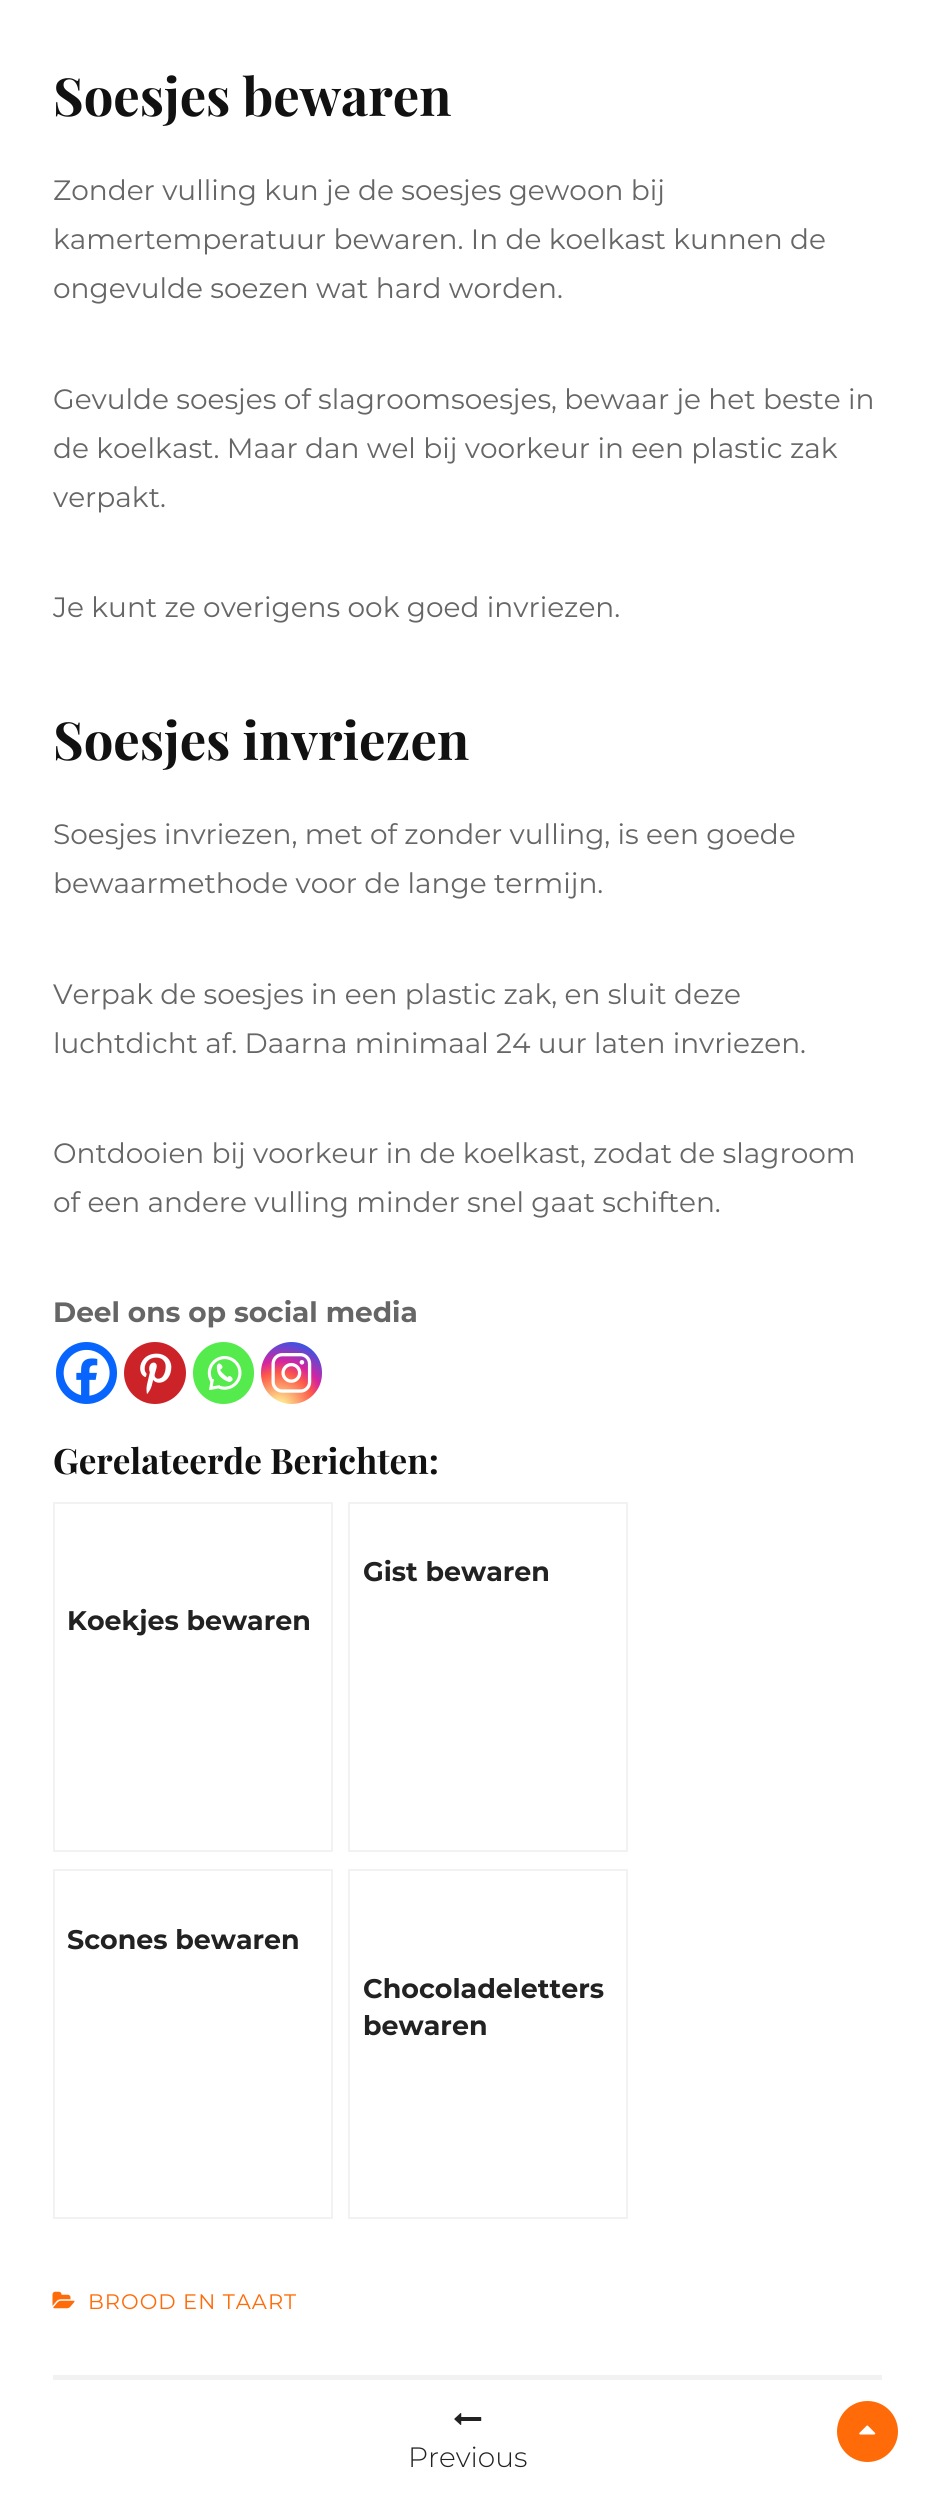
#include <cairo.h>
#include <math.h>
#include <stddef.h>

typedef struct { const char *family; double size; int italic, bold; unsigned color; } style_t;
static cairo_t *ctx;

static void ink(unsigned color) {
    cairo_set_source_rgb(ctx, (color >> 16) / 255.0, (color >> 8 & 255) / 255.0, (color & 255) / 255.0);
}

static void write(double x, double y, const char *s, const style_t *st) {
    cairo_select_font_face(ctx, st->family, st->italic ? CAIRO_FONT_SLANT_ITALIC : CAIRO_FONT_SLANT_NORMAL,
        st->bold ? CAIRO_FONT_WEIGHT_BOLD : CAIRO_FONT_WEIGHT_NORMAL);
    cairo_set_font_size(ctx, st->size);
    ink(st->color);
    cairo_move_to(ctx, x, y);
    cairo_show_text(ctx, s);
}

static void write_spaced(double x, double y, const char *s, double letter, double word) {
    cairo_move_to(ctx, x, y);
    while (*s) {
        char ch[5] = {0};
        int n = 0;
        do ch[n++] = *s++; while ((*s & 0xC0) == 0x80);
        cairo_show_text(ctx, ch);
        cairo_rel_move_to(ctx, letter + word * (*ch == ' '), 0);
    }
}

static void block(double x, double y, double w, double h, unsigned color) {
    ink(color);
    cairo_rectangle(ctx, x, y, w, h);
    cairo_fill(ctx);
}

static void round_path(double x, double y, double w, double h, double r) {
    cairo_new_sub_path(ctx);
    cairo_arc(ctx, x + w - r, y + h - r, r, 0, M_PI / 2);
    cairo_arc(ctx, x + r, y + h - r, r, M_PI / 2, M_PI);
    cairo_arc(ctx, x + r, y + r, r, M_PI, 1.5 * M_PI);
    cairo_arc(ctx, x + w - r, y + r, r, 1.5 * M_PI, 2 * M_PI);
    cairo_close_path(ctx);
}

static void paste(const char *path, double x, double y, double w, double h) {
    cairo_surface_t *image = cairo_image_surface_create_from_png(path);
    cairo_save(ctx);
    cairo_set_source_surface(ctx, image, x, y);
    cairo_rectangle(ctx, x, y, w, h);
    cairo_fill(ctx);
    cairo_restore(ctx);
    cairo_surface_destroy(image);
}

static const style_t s1 = {"Playfair Display", 52.5, 0, 1, 0x111111};
static const style_t s2 = {"Montserrat", 28, 0, 0, 0x666666};
static const style_t s3 = {"Montserrat", 28, 0, 1, 0x666666};
static const style_t s4 = {"Playfair Display", 35, 0, 1, 0x111111};
static const style_t s5 = {"Montserrat", 26.9, 0, 1, 0x222222};
static const style_t s6 = {"Montserrat Light", 28, 0, 0, 0x222222};

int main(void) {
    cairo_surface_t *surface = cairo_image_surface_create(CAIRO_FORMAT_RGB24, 934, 2498);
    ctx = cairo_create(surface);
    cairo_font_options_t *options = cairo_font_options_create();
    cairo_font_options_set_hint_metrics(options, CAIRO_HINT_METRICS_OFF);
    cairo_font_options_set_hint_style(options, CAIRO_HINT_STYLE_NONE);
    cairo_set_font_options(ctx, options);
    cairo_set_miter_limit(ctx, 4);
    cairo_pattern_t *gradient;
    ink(0xffffff);
    cairo_paint(ctx);
    write(53, 116, "Soesjes bewaren", &s1);
    write(53, 200, "Zonder vulling kun je de soesjes gewoon bij", &s2);
    write(53, 249, "kamertemperatuur bewaren. In de koelkast kunnen de", &s2);
    write(53, 298, "ongevulde soezen wat hard worden.", &s2);
    write(53, 409, "Gevulde soesjes of slagroomsoesjes, bewaar je het beste in", &s2);
    write(53, 458, "de koelkast. Maar dan wel bij voorkeur in een plastic zak", &s2);
    write(53, 507, "verpakt.", &s2);
    write(53, 617, "Je kunt ze overigens ook goed invriezen.", &s2);
    write(53, 760, "Soesjes invriezen", &s1);
    write(53, 844, "Soesjes invriezen, met of zonder vulling, is een goede", &s2);
    write(53, 893, "bewaarmethode voor de lange termijn.", &s2);
    write(53, 1004, "Verpak de soesjes in een plastic zak, en sluit deze", &s2);
    write(53, 1053, "luchtdicht af. Daarna minimaal 24 uur laten invriezen.", &s2);
    write(53, 1163, "Ontdooien bij voorkeur in de koelkast, zodat de slagroom", &s2);
    write(53, 1212, "of een andere vulling minder snel gaat schiften.", &s2);
    write(53, 1322, "Deel ons op social media", &s3);
    ink(0x0765fe);
    round_path(56, 1342, 61, 62, 30.5);
    cairo_fill(ctx);
    paste("pic1.png", 63, 1349, 47, 47);
    ink(0xcc2329);
    cairo_arc(ctx, 155, 1373, 31, 0, 2 * M_PI);
    cairo_fill(ctx);
    paste("pic2.png", 140, 1353, 32, 41);
    ink(0x55eb4c);
    round_path(193, 1342, 61, 62, 30.5);
    cairo_fill(ctx);
    paste("pic3.png", 207, 1356, 35, 34);
    gradient = cairo_pattern_create_radial(279, 1408, 0, 279, 1408, 78);
    cairo_pattern_add_color_stop_rgba(gradient, 0, 0.992, 0.957, 0.592, 1);
    cairo_pattern_add_color_stop_rgba(gradient, 0.05, 0.992, 0.957, 0.592, 1);
    cairo_pattern_add_color_stop_rgba(gradient, 0.45, 0.992, 0.349, 0.286, 1);
    cairo_pattern_add_color_stop_rgba(gradient, 0.6, 0.839, 0.141, 0.624, 1);
    cairo_pattern_add_color_stop_rgba(gradient, 0.9, 0.157, 0.353, 0.922, 1);
    cairo_set_source(ctx, gradient);
    cairo_pattern_destroy(gradient);
    round_path(261, 1342, 61, 62, 30.5);
    cairo_fill(ctx);
    paste("pic4.png", 271, 1353, 41, 40);
    write(53, 1474, "Gerelateerde Berichten:", &s4);
    cairo_rectangle(ctx, 349, 1503, 278, 348);
    ink(0xf2f2f2);
    cairo_stroke(ctx);
    write(363, 1581, "Gist bewaren", &s5);
    cairo_rectangle(ctx, 54, 1503, 278, 348);
    ink(0xf2f2f2);
    cairo_stroke(ctx);
    write(67, 1630, "Koekjes bewaren", &s5);
    cairo_rectangle(ctx, 54, 1870, 278, 348);
    ink(0xf2f2f2);
    cairo_stroke(ctx);
    write(67, 1949, "Scones bewaren", &s5);
    cairo_rectangle(ctx, 349, 1870, 278, 348);
    ink(0xf2f2f2);
    cairo_stroke(ctx);
    write(363, 1998, "Chocoladeletters", &s5);
    write(363, 2035, "bewaren", &s5);
    paste("pic5.png", 52, 2291, 23, 18);
    cairo_select_font_face(ctx, "Montserrat", CAIRO_FONT_SLANT_NORMAL, CAIRO_FONT_WEIGHT_NORMAL);
    cairo_set_font_size(ctx, 21);
    ink(0xff6b08);
    write_spaced(88, 2309, "BROOD EN TAART", 1, 0);
    block(53, 2375, 829, 5, 0xf2f2f2);
    paste("pic6.png", 454, 2413, 28, 12);
    write(408, 2467, "Previous", &s6);
    ink(0xff6b08);
    cairo_new_path(ctx);
    cairo_arc(ctx, 867.5, 2431.5, 30.5, 0, 2 * M_PI);
    cairo_fill(ctx);
    paste("pic7.png", 859, 2425, 17, 10);
    cairo_surface_write_to_png(surface, "screenshot.png");
    cairo_font_options_destroy(options);
    cairo_destroy(ctx);
    cairo_surface_destroy(surface);
    return 0;
}
